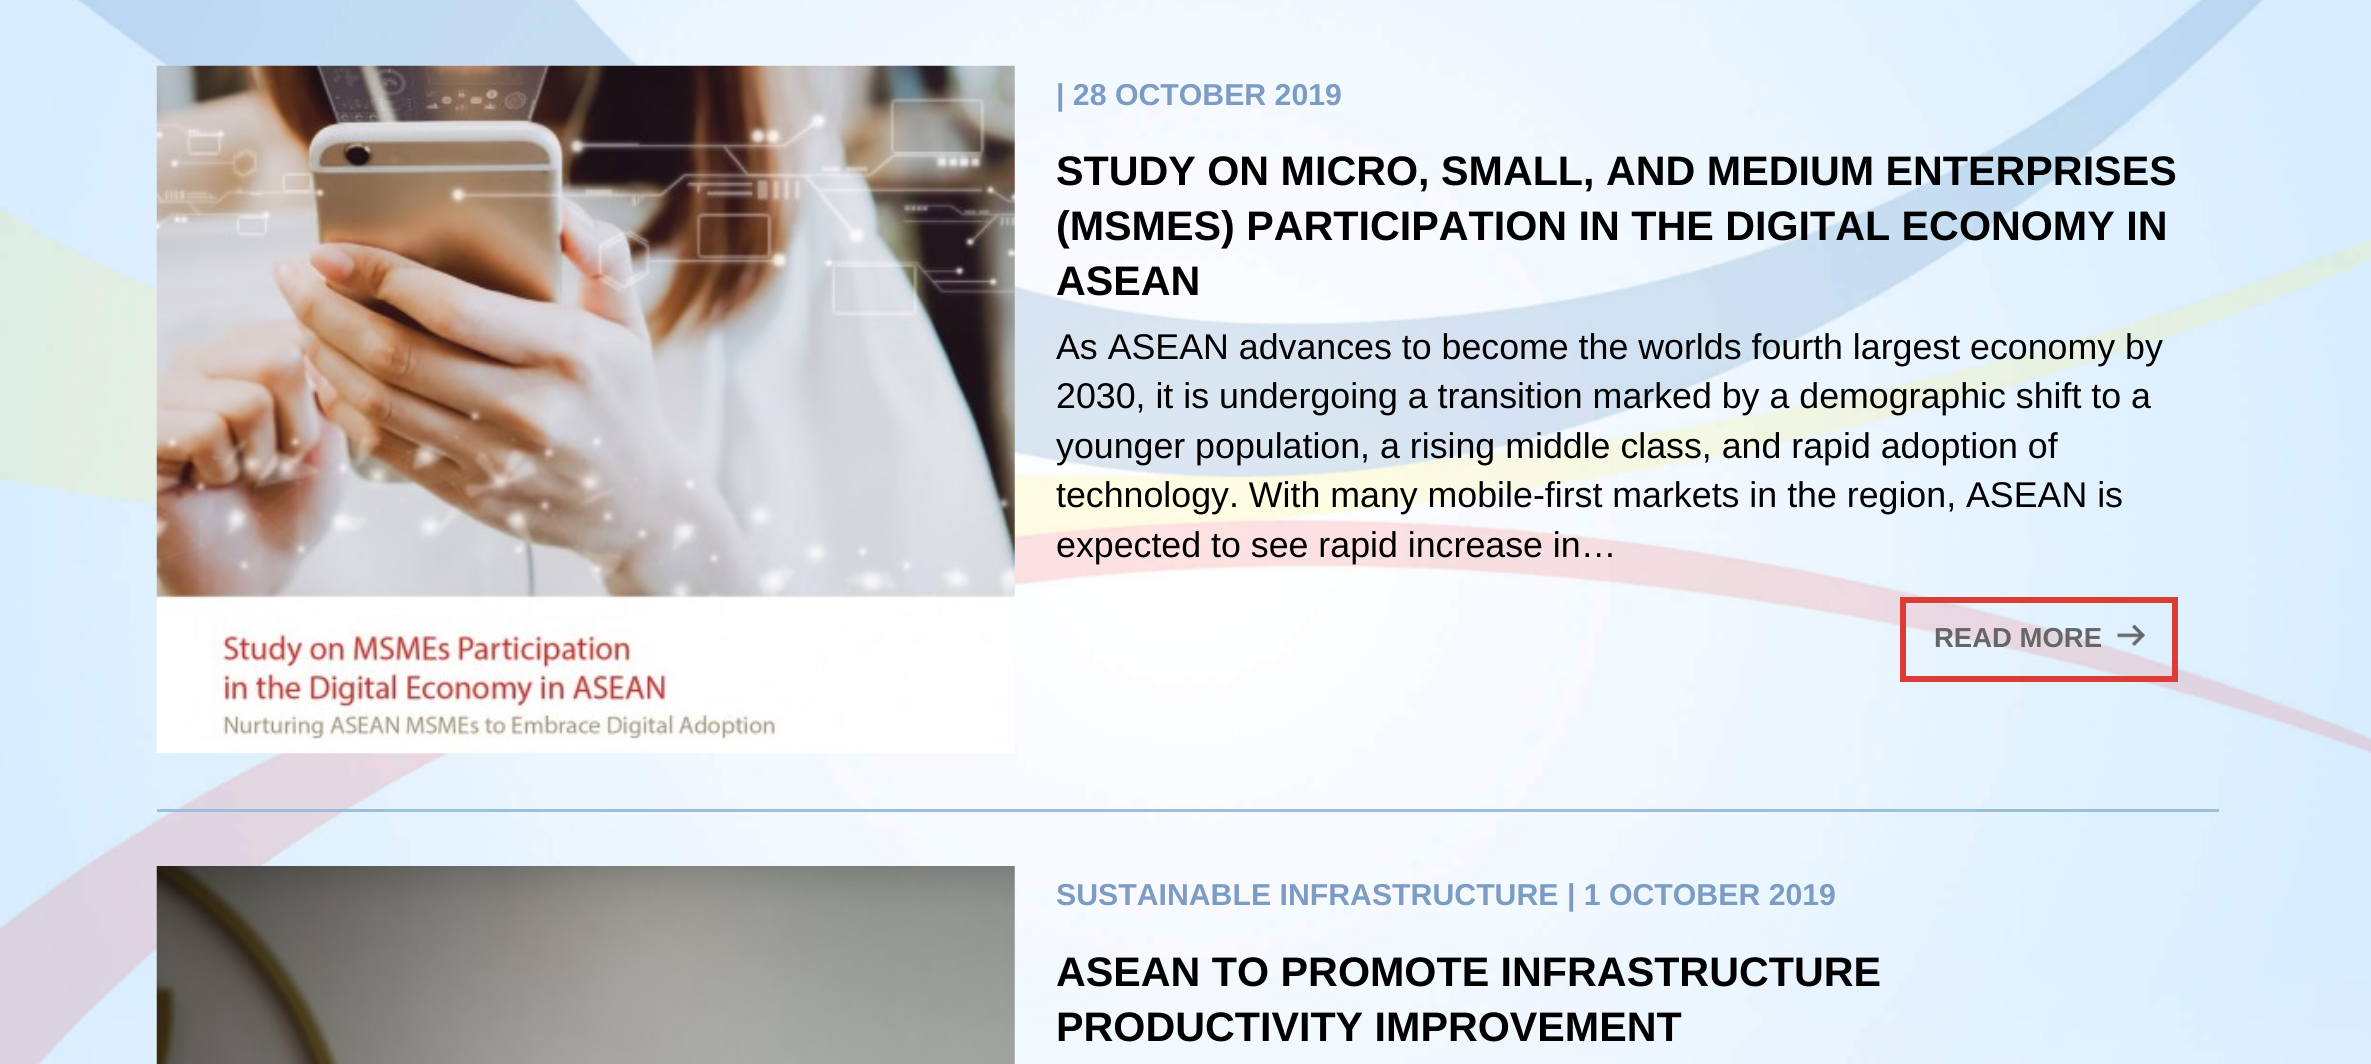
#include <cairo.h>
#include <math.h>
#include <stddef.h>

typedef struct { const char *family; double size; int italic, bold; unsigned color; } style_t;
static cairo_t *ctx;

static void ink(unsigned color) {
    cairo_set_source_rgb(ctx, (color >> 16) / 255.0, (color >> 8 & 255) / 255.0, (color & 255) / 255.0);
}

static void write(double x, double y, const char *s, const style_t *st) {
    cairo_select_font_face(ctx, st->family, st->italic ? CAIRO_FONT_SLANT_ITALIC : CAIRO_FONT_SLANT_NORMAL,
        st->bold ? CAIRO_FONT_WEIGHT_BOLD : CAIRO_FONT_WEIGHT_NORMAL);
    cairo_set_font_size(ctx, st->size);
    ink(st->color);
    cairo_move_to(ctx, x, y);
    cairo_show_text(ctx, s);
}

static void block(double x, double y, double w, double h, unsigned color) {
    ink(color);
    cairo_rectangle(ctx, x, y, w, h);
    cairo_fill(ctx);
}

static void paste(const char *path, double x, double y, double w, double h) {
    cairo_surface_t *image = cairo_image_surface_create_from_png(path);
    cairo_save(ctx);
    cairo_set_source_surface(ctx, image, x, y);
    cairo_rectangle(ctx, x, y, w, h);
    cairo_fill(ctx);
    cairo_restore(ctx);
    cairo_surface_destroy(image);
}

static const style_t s1 = {"Liberation Sans", 30.25, 0, 1, 0x7c9cc4};
static const style_t s2 = {"Liberation Sans", 41.25, 0, 1, 0x000000};
static const style_t s3 = {"Liberation Sans", 35.75, 0, 0, 0x000000};
static const style_t s4 = {"Liberation Sans", 27.5, 0, 1, 0x666666};

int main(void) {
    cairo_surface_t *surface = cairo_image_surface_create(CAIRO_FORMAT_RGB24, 2371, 1064);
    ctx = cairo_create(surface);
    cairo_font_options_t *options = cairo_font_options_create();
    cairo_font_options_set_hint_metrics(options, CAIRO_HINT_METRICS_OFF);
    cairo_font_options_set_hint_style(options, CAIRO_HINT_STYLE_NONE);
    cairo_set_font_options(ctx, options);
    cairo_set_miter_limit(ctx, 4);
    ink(0xffffff);
    cairo_paint(ctx);
    paste("pic1.png", 0, 0, 2371, 1064);
    block(157, 809, 2062, 3, 0x9dc0da);
    paste("pic2.png", 156, 65, 859, 689);
    write(1056, 105, "| 28 OCTOBER 2019", &s1);
    write(1056, 185, "STUDY ON MICRO, SMALL, AND MEDIUM ENTERPRISES", &s2);
    write(1056, 240, "(MSMES) PARTICIPATION IN THE DIGITAL ECONOMY IN", &s2);
    write(1056, 295, "ASEAN", &s2);
    write(1056, 359, "As ASEAN advances to become the worlds fourth largest economy by", &s3);
    write(1056, 408, "2030, it is undergoing a transition marked by a demographic shift to a", &s3);
    write(1056, 458, "younger population, a rising middle class, and rapid adoption of", &s3);
    write(1056, 507, "technology. With many mobile-first markets in the region, ASEAN is", &s3);
    write(1056, 557, "expected to see rapid increase in…", &s3);
    cairo_rectangle(ctx, 1903, 600, 272, 79);
    ink(0xdb3c36);
    cairo_set_line_width(ctx, 6);
    cairo_stroke(ctx);
    write(1934, 647, "READ MORE", &s4);
    paste("pic3.png", 2117, 624, 28, 22);
    paste("pic4.png", 156, 866, 859, 198);
    write(1056, 905, "SUSTAINABLE INFRASTRUCTURE | 1 OCTOBER 2019", &s1);
    write(1056, 986, "ASEAN TO PROMOTE INFRASTRUCTURE", &s2);
    write(1056, 1041, "PRODUCTIVITY IMPROVEMENT", &s2);
    cairo_surface_write_to_png(surface, "screenshot.png");
    cairo_font_options_destroy(options);
    cairo_destroy(ctx);
    cairo_surface_destroy(surface);
    return 0;
}
